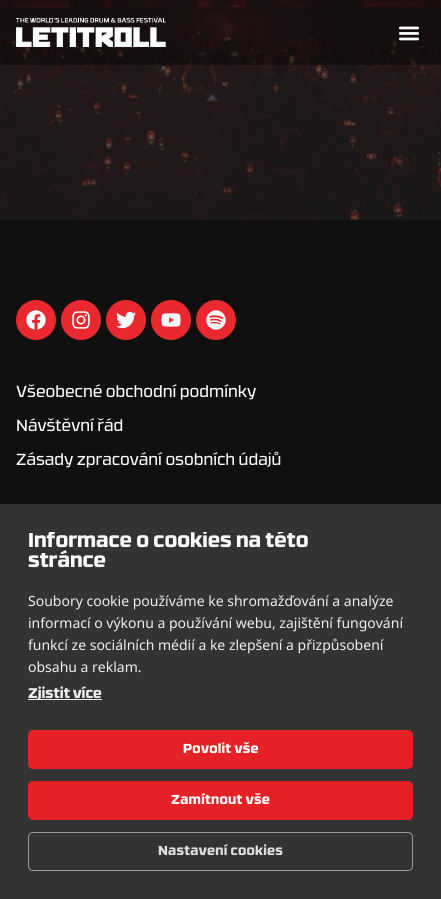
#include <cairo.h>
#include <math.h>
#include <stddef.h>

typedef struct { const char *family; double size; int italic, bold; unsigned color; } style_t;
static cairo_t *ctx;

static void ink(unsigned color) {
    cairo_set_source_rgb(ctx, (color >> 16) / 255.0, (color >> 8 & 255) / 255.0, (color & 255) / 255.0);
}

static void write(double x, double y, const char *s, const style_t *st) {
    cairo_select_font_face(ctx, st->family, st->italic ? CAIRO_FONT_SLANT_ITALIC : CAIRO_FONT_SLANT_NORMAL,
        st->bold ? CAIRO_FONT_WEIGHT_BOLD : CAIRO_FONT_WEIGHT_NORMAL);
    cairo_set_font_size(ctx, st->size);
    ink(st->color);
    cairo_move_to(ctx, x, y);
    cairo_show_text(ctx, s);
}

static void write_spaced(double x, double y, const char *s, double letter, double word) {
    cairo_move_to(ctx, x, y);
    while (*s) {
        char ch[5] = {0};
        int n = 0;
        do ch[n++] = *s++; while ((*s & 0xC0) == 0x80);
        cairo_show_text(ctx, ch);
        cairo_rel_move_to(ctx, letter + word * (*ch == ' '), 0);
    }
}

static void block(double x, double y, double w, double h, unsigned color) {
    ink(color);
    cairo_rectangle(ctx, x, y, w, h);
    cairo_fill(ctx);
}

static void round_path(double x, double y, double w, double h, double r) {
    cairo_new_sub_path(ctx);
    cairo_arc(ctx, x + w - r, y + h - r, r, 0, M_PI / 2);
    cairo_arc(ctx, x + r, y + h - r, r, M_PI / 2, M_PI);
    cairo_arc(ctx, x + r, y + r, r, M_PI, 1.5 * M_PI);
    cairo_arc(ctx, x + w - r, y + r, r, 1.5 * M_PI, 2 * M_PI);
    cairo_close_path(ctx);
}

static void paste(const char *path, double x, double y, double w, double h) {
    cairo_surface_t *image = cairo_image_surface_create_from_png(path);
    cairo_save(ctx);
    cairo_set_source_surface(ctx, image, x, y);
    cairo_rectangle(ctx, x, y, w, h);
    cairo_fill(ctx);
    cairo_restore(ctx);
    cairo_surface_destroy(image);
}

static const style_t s1 = {"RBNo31", 16, 0, 0, 0xfcfcfc};
static const style_t s2 = {"RBNo31 ExtraBold", 20, 0, 0, 0xfcfcfc};
static const style_t s3 = {"Noto Sans", 14, 0, 0, 0xeeeeee};
static const style_t s4 = {"RBNo31 ExtraBold", 14, 0, 0, 0xeeeeee};

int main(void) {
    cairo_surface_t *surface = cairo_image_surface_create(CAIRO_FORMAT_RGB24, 441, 899);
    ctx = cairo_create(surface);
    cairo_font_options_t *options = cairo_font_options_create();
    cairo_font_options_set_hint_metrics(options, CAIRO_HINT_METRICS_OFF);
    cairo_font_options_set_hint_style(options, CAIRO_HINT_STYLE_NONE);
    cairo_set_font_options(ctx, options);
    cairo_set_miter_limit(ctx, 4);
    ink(0xffffff);
    cairo_paint(ctx);
    paste("pic1.png", 0, 0, 441, 220);
    cairo_set_source_rgba(ctx, 0, 0, 0, 0.4);
    cairo_rectangle(ctx, 0, 0, 441, 65);
    cairo_fill(ctx);
    paste("pic2.png", 16, 18, 150, 29);
    cairo_set_source_rgba(ctx, 0, 0, 0, 0.05);
    cairo_rectangle(ctx, 394, 43, 2, 1);
    cairo_fill(ctx);
    paste("pic3.png", 398, 26, 22, 15);
    block(0, 220, 441, 284, 0x101010);
    ink(0xe9292f);
    cairo_arc(ctx, 36, 320, 20, 0, 2 * M_PI);
    cairo_fill(ctx);
    paste("pic4.png", 26, 310, 20, 20);
    cairo_arc(ctx, 81, 320, 20, 0, 2 * M_PI);
    cairo_fill(ctx);
    paste("pic5.png", 72, 311, 18, 18);
    cairo_arc(ctx, 126, 320, 20, 0, 2 * M_PI);
    cairo_fill(ctx);
    paste("pic6.png", 116, 311, 20, 18);
    cairo_arc(ctx, 171, 320, 20, 0, 2 * M_PI);
    cairo_fill(ctx);
    paste("pic7.png", 161, 313, 20, 14);
    cairo_arc(ctx, 216, 320, 20, 0, 2 * M_PI);
    cairo_fill(ctx);
    paste("pic8.png", 206, 310, 20, 20);
    write(16, 397, "Všeobecné obchodní podmínky", &s1);
    write(16, 431, "Návštěvní řád", &s1);
    write(16, 465, "Zásady zpracování osobních údajů", &s1);
    block(0, 504, 441, 395, 0x333333);
    cairo_save(ctx);
    cairo_rectangle(ctx, 28, 532, 385, 198);
    cairo_clip(ctx);
    write(28, 547, "Informace o cookies na této", &s2);
    cairo_restore(ctx);
    write(28, 567, "stránce", &s2);
    write(28, 606, "Soubory cookie používáme ke shromažďování a analýze", &s3);
    write(28, 628, "informací o výkonu a používání webu, zajištění fungování", &s3);
    write(28, 650, "funkcí ze sociálních médií a ke zlepšení a přizpůsobení", &s3);
    write(28, 672, "obsahu a reklam.", &s3);
    block(28, 699, 74, 1, 0xeeeeee);
    write(28, 698, "Zjistit více", &s4);
    ink(0xe42127);
    round_path(28, 730, 385, 39, 5);
    cairo_fill(ctx);
    cairo_set_font_size(ctx, 13);
    ink(0xfcfcfc);
    write_spaced(183, 753, "Povolit vše", 0.25, 0);
    ink(0xe42127);
    round_path(28, 781, 385, 39, 5);
    cairo_fill(ctx);
    ink(0xfcfcfc);
    write_spaced(171, 804, "Zamítnout vše", 0.25, 0);
    round_path(28.5, 832.5, 384, 38, 4.5);
    ink(0x999999);
    cairo_set_line_width(ctx, 1);
    cairo_stroke(ctx);
    ink(0xdddddd);
    write_spaced(158, 855, "Nastavení cookies", 0.25, 0);
    cairo_surface_write_to_png(surface, "screenshot.png");
    cairo_font_options_destroy(options);
    cairo_destroy(ctx);
    cairo_surface_destroy(surface);
    return 0;
}
